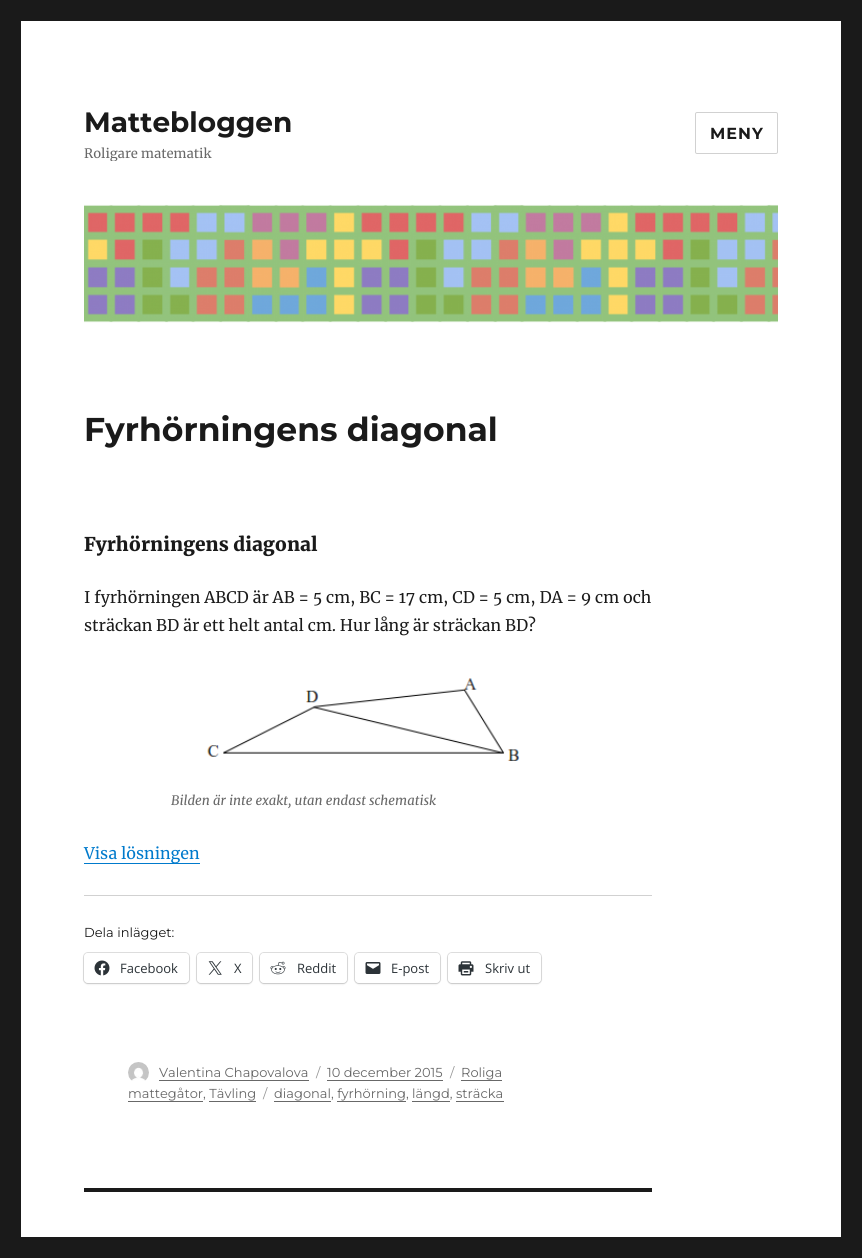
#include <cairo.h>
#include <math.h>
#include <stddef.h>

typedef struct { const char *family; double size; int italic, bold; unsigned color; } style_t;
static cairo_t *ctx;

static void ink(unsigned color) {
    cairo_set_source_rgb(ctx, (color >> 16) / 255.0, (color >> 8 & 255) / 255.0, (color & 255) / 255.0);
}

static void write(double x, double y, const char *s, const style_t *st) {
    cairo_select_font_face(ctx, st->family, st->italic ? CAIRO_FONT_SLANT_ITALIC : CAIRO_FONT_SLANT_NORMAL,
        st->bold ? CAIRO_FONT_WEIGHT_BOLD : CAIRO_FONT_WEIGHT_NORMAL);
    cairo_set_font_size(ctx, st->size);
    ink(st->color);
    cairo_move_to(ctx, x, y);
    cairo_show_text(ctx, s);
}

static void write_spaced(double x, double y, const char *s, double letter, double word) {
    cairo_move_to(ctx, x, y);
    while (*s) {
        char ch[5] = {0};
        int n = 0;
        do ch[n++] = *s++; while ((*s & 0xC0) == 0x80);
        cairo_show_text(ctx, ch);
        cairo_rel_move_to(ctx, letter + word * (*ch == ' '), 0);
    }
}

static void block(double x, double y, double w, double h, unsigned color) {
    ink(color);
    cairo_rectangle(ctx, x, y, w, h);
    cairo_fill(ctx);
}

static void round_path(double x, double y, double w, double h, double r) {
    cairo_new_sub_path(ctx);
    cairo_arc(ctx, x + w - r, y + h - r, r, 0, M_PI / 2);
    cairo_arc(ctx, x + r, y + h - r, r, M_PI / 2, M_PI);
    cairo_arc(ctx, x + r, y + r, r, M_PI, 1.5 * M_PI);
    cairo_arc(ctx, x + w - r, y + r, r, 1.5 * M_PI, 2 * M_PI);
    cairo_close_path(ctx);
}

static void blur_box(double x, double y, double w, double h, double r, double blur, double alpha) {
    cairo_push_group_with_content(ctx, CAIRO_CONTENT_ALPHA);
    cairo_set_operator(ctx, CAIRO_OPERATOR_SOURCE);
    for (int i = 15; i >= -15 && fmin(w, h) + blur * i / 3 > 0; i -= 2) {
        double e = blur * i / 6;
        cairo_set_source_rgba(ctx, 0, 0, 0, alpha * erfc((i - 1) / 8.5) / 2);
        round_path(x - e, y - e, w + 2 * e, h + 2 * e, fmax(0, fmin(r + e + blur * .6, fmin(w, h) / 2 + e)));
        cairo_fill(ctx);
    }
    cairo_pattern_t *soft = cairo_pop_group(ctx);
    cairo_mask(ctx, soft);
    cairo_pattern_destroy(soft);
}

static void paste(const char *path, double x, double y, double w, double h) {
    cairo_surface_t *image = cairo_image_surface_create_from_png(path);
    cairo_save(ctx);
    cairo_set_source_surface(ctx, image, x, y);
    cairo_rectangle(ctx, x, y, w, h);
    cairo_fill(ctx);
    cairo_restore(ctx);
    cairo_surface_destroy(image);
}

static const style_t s1 = {"Montserrat Thin", 28, 0, 0, 0x1a1a1a};
static const style_t s2 = {"Merriweather", 13, 0, 0, 0x686868};
static const style_t s3 = {"Montserrat Thin", 33, 0, 0, 0x1a1a1a};
static const style_t s4 = {"Merriweather Black", 19, 0, 0, 0x1a1a1a};
static const style_t s5 = {"Merriweather", 16, 0, 0, 0x1a1a1a};
static const style_t s6 = {"Merriweather", 13, 1, 0, 0x686868};
static const style_t s7 = {"Merriweather", 16, 0, 0, 0x007acc};
static const style_t s8 = {"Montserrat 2 Thin", 13, 0, 0, 0x1a1a1a};
static const style_t s9 = {"Open Sans", 13, 0, 0, 0x2c3338};
static const style_t s10 = {"Montserrat 2 Thin", 13, 0, 0, 0x686868};
static const style_t s11 = {"Montserrat 2 Thin", 13, 0, 0, 0x959595};

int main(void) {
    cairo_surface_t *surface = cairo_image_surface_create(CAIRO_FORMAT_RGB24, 862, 1258);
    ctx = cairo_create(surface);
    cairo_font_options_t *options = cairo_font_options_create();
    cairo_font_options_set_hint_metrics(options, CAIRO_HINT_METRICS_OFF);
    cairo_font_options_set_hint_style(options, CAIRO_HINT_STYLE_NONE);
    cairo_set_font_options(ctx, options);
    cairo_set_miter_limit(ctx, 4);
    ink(0x1a1a1a);
    cairo_paint(ctx);
    block(21, 21, 820, 1216, 0xffffff);
    write(84, 132, "Mattebloggen", &s1);
    cairo_save(ctx);
    cairo_rectangle(ctx, 84, 105, 208, 56);
    cairo_clip(ctx);
    write(84, 158, "Roligare matematik", &s2);
    cairo_restore(ctx);
    round_path(695.5, 112.5, 82, 41, 1.5);
    ink(0xd1d1d1);
    cairo_set_line_width(ctx, 1);
    cairo_stroke(ctx);
    cairo_set_font_size(ctx, 16);
    ink(0x1a1a1a);
    write_spaced(710, 139, "MENY", 1, 0);
    paste("pic1.png", 84, 204, 694, 119);
    write(84, 441, "Fyrhörningens diagonal", &s3);
    write(84, 551, "Fyrhörningens diagonal", &s4);
    write(84, 603, "I fyrhörningen ABCD är AB = 5 cm, BC = 17 cm, CD = 5 cm, DA = 9 cm och", &s5);
    write(84, 631, "sträckan BD är ett helt antal cm. Hur lång är sträckan BD?", &s5);
    paste("pic2.png", 207, 678, 313, 83);
    write(171, 805, "Bilden är inte exakt, utan endast schematisk", &s6);
    block(84, 863, 116, 1, 0x007acc);
    write(84, 859, "Visa lösningen", &s7);
    block(84, 895, 568, 1, 0xd1d1d1);
    write(84, 937, "Dela inlägget:", &s8);
    round_path(83.5, 952.5, 106, 31, 4.5);
    ink(0xe0e0e0);
    cairo_stroke(ctx);
    ink(0x000000);
    blur_box(84, 954, 105, 30, 4, 1, 0.12);
    ink(0xffffff);
    round_path(84, 953, 105, 30, 4);
    cairo_fill(ctx);
    paste("pic3.png", 94, 960, 16, 16);
    write(120, 973, "Facebook", &s9);
    round_path(196.5, 952.5, 56, 31, 4.5);
    ink(0xe0e0e0);
    cairo_stroke(ctx);
    ink(0x000000);
    blur_box(197, 954, 55, 30, 4, 1, 0.12);
    ink(0xffffff);
    round_path(197, 953, 55, 30, 4);
    cairo_fill(ctx);
    paste("pic4.png", 208, 961, 14, 14);
    write(234, 973, "X", &s9);
    round_path(259.5, 952.5, 88, 31, 4.5);
    ink(0xe0e0e0);
    cairo_stroke(ctx);
    ink(0x000000);
    blur_box(260, 954, 87, 30, 4, 1, 0.12);
    ink(0xffffff);
    round_path(260, 953, 87, 30, 4);
    cairo_fill(ctx);
    paste("pic5.png", 270, 961, 16, 14);
    write(297, 973, "Reddit", &s9);
    round_path(354.5, 952.5, 86, 31, 4.5);
    ink(0xe0e0e0);
    cairo_stroke(ctx);
    ink(0x000000);
    blur_box(355, 954, 85, 30, 4, 1, 0.12);
    ink(0xffffff);
    round_path(355, 953, 85, 30, 4);
    cairo_fill(ctx);
    paste("pic6.png", 365, 962, 16, 12);
    write(391, 973, "E-post", &s9);
    round_path(447.5, 952.5, 94, 31, 4.5);
    ink(0xe0e0e0);
    cairo_stroke(ctx);
    ink(0x000000);
    blur_box(448, 954, 93, 30, 4, 1, 0.12);
    ink(0xffffff);
    round_path(448, 953, 93, 30, 4);
    cairo_fill(ctx);
    paste("pic7.png", 458, 961, 16, 15);
    write(485, 973, "Skriv ut", &s9);
    paste("pic8.png", 128, 1062, 21, 19);
    write(159, 1077, "Valentina Chapovalova", &s10);
    block(159, 1080, 150, 1, 0x686868);
    write(316, 1077, "/", &s11);
    write(327, 1077, "10 december 2015", &s10);
    block(327, 1080, 116, 1, 0x686868);
    write(450, 1077, "/", &s11);
    write(461, 1077, "Roliga", &s10);
    block(461, 1080, 41, 1, 0x686868);
    write(128, 1098, "mattegåtor, Tävling", &s10);
    block(128, 1101, 75, 1, 0x686868);
    write(263, 1098, "/", &s11);
    block(209, 1101, 47, 1, 0x686868);
    write(274, 1098, "diagonal, fyrhörning, längd, sträcka", &s10);
    block(274, 1101, 57, 1, 0x686868);
    block(337, 1101, 69, 1, 0x686868);
    block(412, 1101, 38, 1, 0x686868);
    block(456, 1101, 48, 1, 0x686868);
    block(84, 1188, 568, 4, 0x1a1a1a);
    cairo_surface_write_to_png(surface, "screenshot.png");
    cairo_font_options_destroy(options);
    cairo_destroy(ctx);
    cairo_surface_destroy(surface);
    return 0;
}
